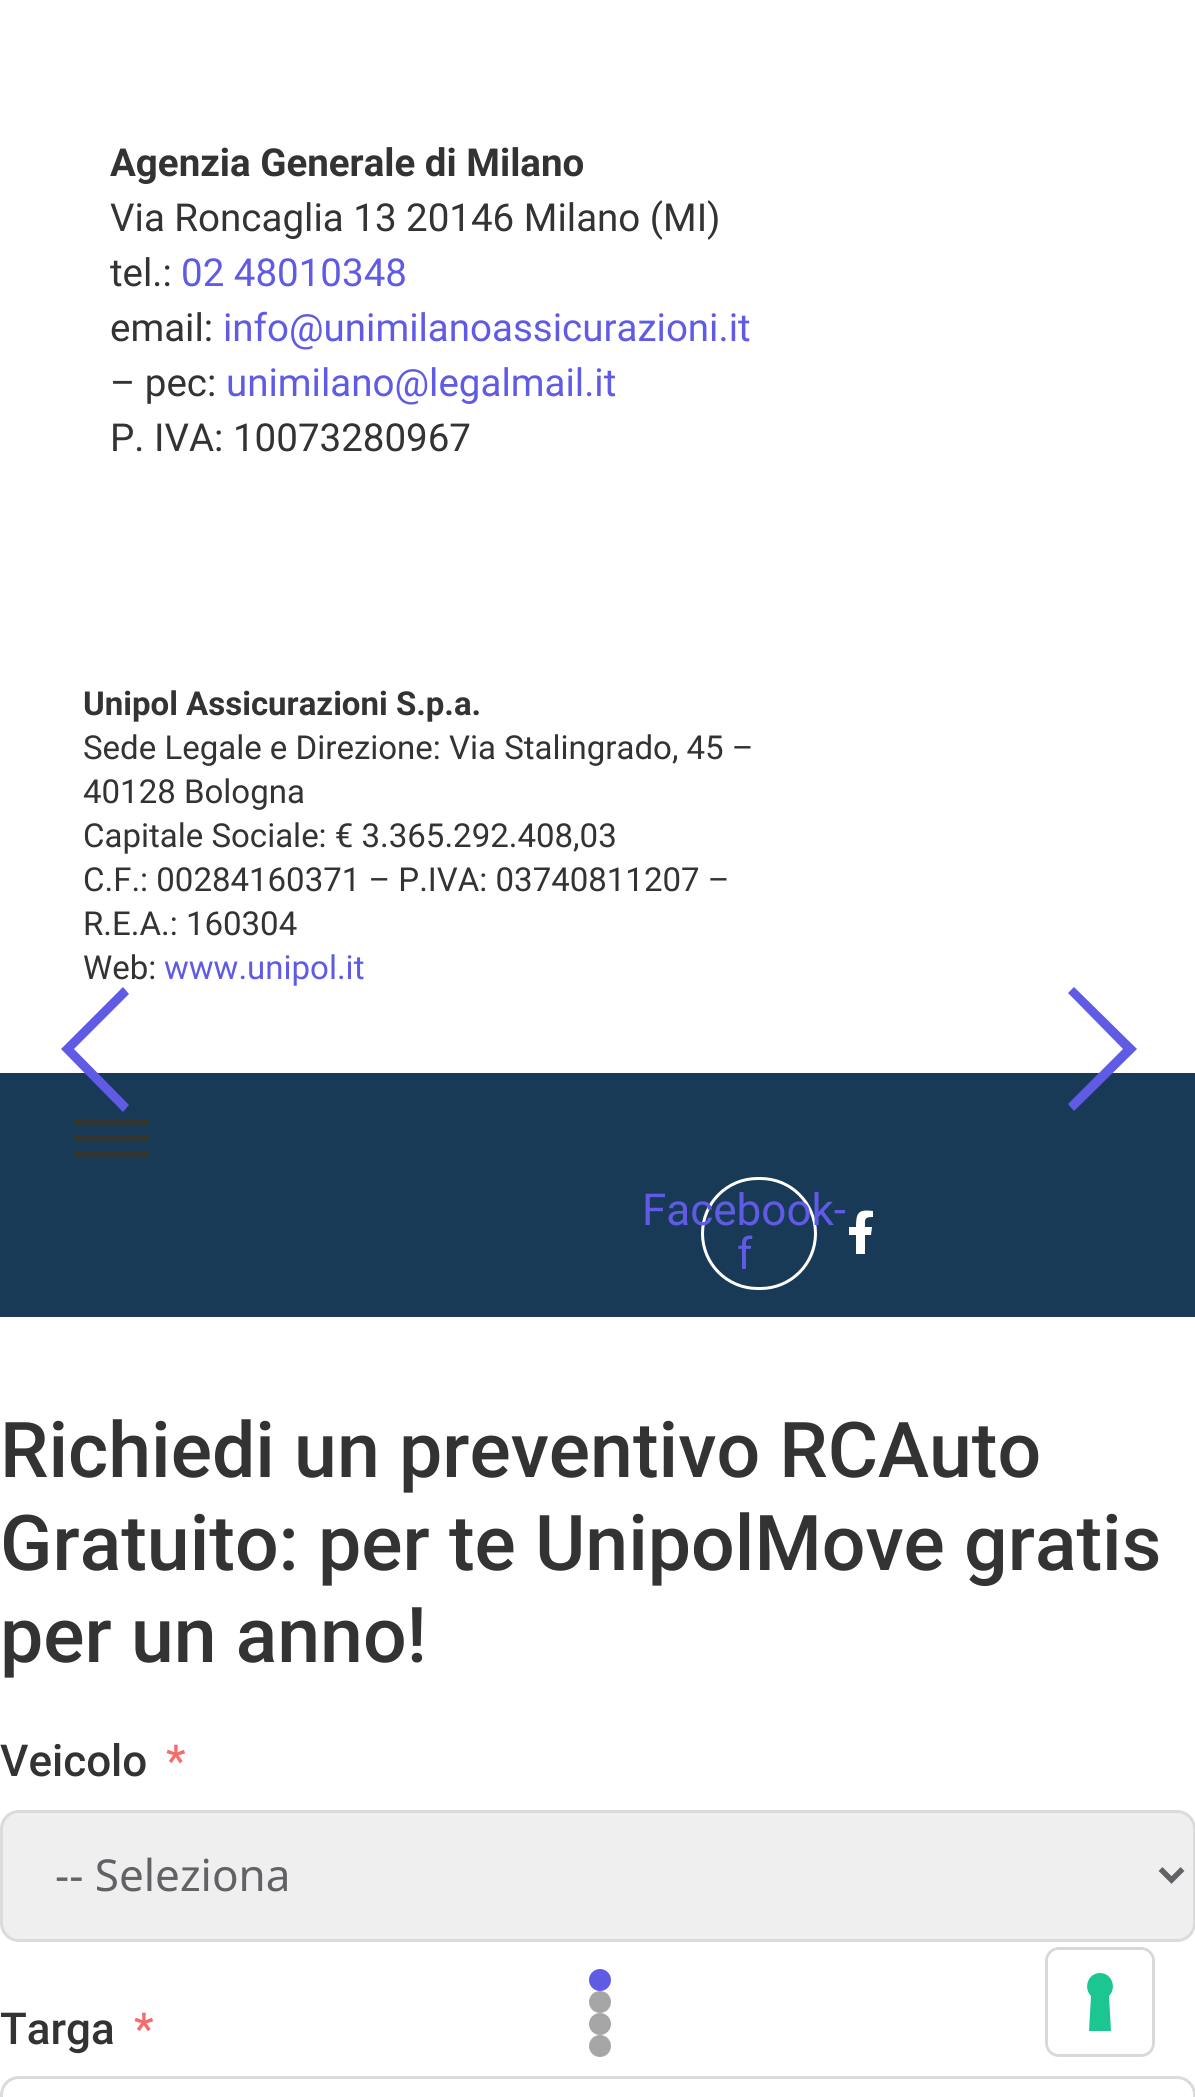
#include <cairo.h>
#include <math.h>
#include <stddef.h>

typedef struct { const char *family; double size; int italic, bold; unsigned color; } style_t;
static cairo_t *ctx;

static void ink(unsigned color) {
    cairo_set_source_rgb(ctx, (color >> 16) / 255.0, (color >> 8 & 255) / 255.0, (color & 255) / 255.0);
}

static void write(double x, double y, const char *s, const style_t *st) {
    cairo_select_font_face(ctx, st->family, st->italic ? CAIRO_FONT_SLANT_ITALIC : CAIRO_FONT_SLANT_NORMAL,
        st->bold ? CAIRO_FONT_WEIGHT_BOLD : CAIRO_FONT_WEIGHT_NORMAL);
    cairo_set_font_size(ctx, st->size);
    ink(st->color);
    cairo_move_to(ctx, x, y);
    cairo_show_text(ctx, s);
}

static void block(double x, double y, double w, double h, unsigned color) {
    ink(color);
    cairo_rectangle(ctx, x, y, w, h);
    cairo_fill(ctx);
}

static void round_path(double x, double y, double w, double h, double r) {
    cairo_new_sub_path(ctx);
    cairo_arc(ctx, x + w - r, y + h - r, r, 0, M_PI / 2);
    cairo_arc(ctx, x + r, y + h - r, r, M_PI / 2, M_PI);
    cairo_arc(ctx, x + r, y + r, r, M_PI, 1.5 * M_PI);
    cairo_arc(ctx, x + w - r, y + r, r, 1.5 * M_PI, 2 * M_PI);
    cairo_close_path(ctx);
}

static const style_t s1 = {"Roboto", 38.5, 0, 1, 0x333333};
static const style_t s2 = {"Roboto", 38.5, 0, 0, 0x333333};
static const style_t s3 = {"Roboto", 38.5, 0, 0, 0x605be5};
static const style_t s4 = {"Roboto", 33, 0, 1, 0x333333};
static const style_t s5 = {"Roboto", 33, 0, 0, 0x333333};
static const style_t s6 = {"Roboto", 33, 0, 0, 0x605be5};
static const style_t s7 = {"Roboto", 44, 0, 0, 0x605be5};
static const style_t s8 = {"Roboto Medium", 77, 0, 0, 0x333333};
static const style_t s9 = {"Roboto Medium", 44, 0, 0, 0x333333};
static const style_t s10 = {"Roboto Medium", 44, 0, 0, 0xf56c6c};
static const style_t s11 = {"Noto Sans", 44, 0, 0, 0x606266};

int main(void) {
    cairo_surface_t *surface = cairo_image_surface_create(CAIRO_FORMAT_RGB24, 1195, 2097);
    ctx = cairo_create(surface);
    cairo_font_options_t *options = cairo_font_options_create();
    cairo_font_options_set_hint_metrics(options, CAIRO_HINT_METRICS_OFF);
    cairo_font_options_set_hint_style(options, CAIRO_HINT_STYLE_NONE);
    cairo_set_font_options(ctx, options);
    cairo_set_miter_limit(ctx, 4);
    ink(0xffffff);
    cairo_paint(ctx);
    write(110, 176, "Agenzia Generale di Milano", &s1);
    write(110, 231, "Via Roncaglia 13 20146 Milano (MI)", &s2);
    write(110, 286, "tel.:", &s2);
    write(181, 286, "02 48010348", &s3);
    write(110, 341, "email:", &s2);
    write(223, 341, "info@unimilanoassicurazioni.it", &s3);
    write(110, 396, "– pec:", &s2);
    write(226, 396, "unimilano@legalmail.it", &s3);
    write(110, 451, "P. IVA: 10073280967", &s2);
    write(83, 715, "Unipol Assicurazioni S.p.a.", &s4);
    write(83, 759, "Sede Legale e Direzione: Via Stalingrado, 45 –", &s5);
    write(83, 803, "40128 Bologna", &s5);
    write(83, 847, "Capitale Sociale: € 3.365.292.408,03", &s5);
    write(83, 891, "C.F.: 00284160371 – P.IVA: 03740811207 –", &s5);
    write(83, 935, "R.E.A.: 160304", &s5);
    write(83, 979, "Web:", &s5);
    write(164, 979, "www.unipol.it", &s6);
    block(0, 1073, 1195, 244, 0x193a56);
    block(74, 1119, 75, 6, 0x333333);
    block(74, 1136, 75, 6, 0x333333);
    block(74, 1152, 75, 6, 0x333333);
    round_path(702.5, 1178.5, 113, 110, 55);
    ink(0xffffff);
    cairo_set_line_width(ctx, 3);
    cairo_stroke(ctx);
    write(642, 1225, "Facebook-", &s7);
    write(737, 1269, "f", &s7);
    ink(0xffffff);
    cairo_new_path(ctx);
    cairo_move_to(ctx, 871, 1235);
    cairo_line_to(ctx, 865, 1235);
    cairo_line_to(ctx, 865, 1254);
    cairo_line_to(ctx, 856, 1254);
    cairo_line_to(ctx, 856, 1235);
    cairo_line_to(ctx, 849, 1235);
    cairo_line_to(ctx, 849, 1227);
    cairo_line_to(ctx, 856, 1227);
    cairo_curve_to(ctx, 856, 1213, 858, 1209, 873, 1211);
    cairo_line_to(ctx, 873, 1217);
    cairo_curve_to(ctx, 864, 1217, 865, 1219, 865, 1227);
    cairo_line_to(ctx, 872, 1227);
    cairo_close_path(ctx);
    cairo_fill(ctx);
    ink(0x605be5);
    cairo_new_path(ctx);
    cairo_move_to(ctx, 74, 1049);
    cairo_line_to(ctx, 129, 1105);
    cairo_line_to(ctx, 123, 1112);
    cairo_line_to(ctx, 61, 1049);
    cairo_line_to(ctx, 123, 987);
    cairo_line_to(ctx, 129, 994);
    cairo_close_path(ctx);
    cairo_fill(ctx);
    cairo_new_path(ctx);
    cairo_move_to(ctx, 1123, 1049);
    cairo_line_to(ctx, 1068, 993);
    cairo_line_to(ctx, 1074, 987);
    cairo_line_to(ctx, 1137, 1049);
    cairo_line_to(ctx, 1074, 1111);
    cairo_line_to(ctx, 1068, 1104);
    cairo_close_path(ctx);
    cairo_fill(ctx);
    cairo_arc(ctx, 600, 1980, 11, 0, 2 * M_PI);
    cairo_fill(ctx);
    ink(0xa6a6a6);
    cairo_arc(ctx, 600, 2002, 11, 0, 2 * M_PI);
    cairo_fill(ctx);
    cairo_arc(ctx, 600, 2024, 11, 0, 2 * M_PI);
    cairo_fill(ctx);
    cairo_arc(ctx, 600, 2046, 11, 0, 2 * M_PI);
    cairo_fill(ctx);
    write(0, 1477, "Richiedi un preventivo RCAuto", &s8);
    write(0, 1570, "Gratuito: per te UnipolMove gratis", &s8);
    write(0, 1662, "per un anno!", &s8);
    write(0, 1776, "Veicolo", &s9);
    write(166, 1776, "*", &s10);
    ink(0xefefef);
    round_path(1.5, 1811.5, 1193, 129, 17.5);
    cairo_fill_preserve(ctx);
    ink(0xdadbdd);
    cairo_stroke(ctx);
    cairo_new_path(ctx);
    cairo_move_to(ctx, 1160.5, 1869);
    cairo_line_to(ctx, 1171.5, 1880);
    cairo_line_to(ctx, 1182.5, 1869);
    ink(0x606266);
    cairo_set_line_width(ctx, 5.5);
    cairo_stroke(ctx);
    write(55, 1891, "-- Seleziona", &s11);
    write(0, 2044, "Targa", &s9);
    write(134, 2044, "*", &s10);
    round_path(1.5, 2077.5, 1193, 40, 17.5);
    ink(0xdadbdd);
    cairo_set_line_width(ctx, 3);
    cairo_stroke(ctx);
    round_path(1046.5, 1948.5, 107, 107, 12.5);
    ink(0xd9d9d9);
    cairo_stroke(ctx);
    ink(0xffffff);
    round_path(1048, 1950, 104, 104, 11);
    cairo_fill(ctx);
    ink(0x1cc691);
    cairo_set_fill_rule(ctx, CAIRO_FILL_RULE_EVEN_ODD);
    cairo_new_path(ctx);
    cairo_move_to(ctx, 1100, 1973);
    cairo_curve_to(ctx, 1112, 1973, 1117, 1988, 1109, 1996);
    cairo_line_to(ctx, 1111, 2031);
    cairo_line_to(ctx, 1089, 2031);
    cairo_line_to(ctx, 1091, 1996);
    cairo_curve_to(ctx, 1083, 1988, 1088, 1973, 1100, 1973);
    cairo_close_path(ctx);
    cairo_fill(ctx);
    cairo_surface_write_to_png(surface, "screenshot.png");
    cairo_font_options_destroy(options);
    cairo_destroy(ctx);
    cairo_surface_destroy(surface);
    return 0;
}
